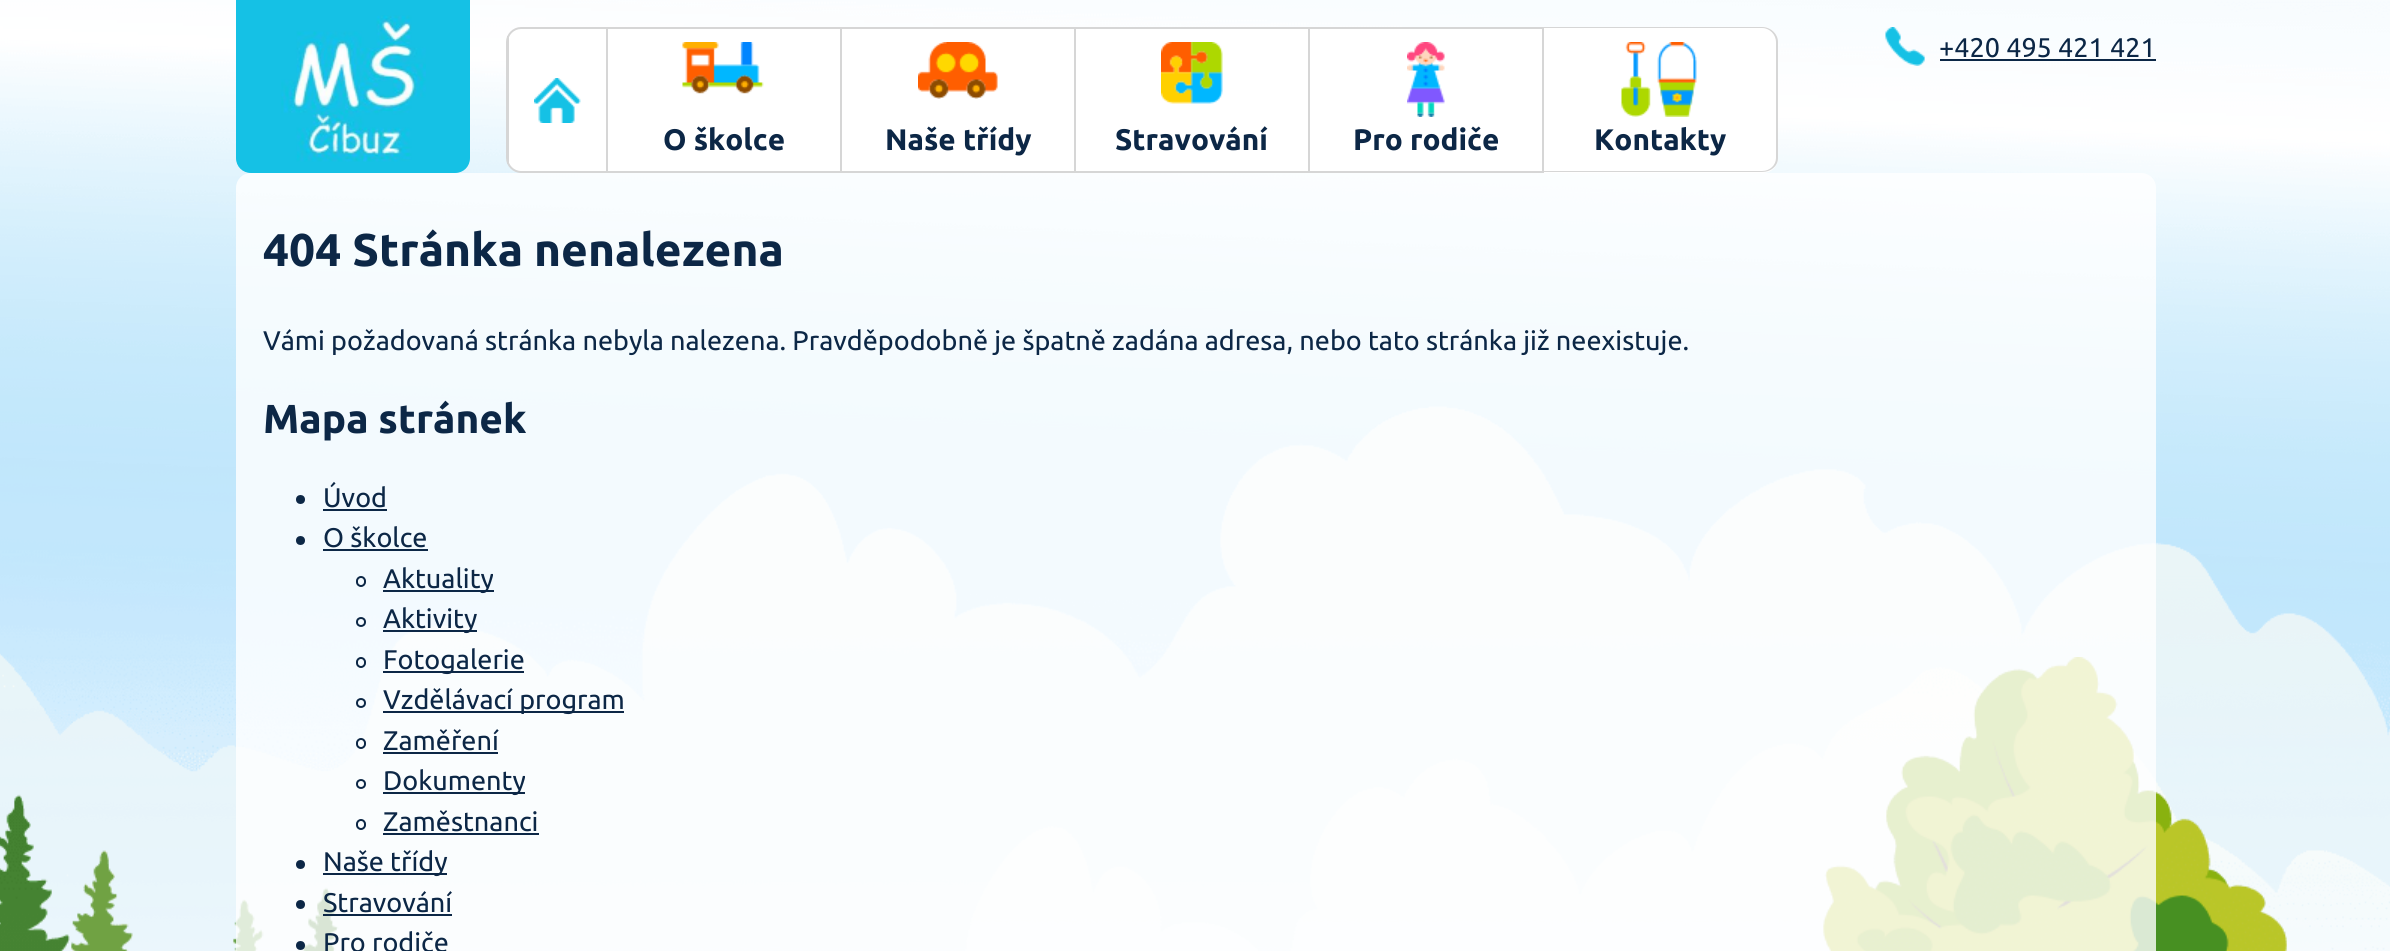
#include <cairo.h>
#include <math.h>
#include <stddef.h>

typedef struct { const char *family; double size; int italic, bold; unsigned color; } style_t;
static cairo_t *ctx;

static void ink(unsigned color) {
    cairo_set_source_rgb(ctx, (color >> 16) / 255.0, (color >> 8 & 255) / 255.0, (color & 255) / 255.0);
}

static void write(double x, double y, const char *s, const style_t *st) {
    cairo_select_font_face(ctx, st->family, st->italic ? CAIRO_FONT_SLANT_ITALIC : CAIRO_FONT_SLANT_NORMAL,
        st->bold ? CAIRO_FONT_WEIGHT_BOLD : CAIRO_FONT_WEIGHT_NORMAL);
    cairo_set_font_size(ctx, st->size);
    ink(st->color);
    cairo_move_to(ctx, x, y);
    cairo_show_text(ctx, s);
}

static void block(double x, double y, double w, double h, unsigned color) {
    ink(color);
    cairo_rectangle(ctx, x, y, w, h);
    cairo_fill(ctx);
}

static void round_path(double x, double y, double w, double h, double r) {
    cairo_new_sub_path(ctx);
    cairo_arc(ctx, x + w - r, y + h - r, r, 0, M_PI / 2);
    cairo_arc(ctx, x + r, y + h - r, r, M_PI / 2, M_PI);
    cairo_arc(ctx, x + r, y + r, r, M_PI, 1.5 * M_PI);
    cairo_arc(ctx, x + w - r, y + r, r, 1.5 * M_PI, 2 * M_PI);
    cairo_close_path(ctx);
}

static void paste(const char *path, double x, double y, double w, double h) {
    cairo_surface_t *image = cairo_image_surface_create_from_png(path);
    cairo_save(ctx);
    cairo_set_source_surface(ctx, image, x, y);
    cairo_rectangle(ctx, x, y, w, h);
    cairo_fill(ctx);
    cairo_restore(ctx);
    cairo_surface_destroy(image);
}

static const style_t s1 = {"Ubuntu", 27, 0, 0, 0x0c2746};
static const style_t s2 = {"Ubuntu", 29.75, 0, 1, 0x0c2746};
static const style_t s3 = {"Ubuntu", 45.9, 0, 1, 0x0c2746};
static const style_t s4 = {"Ubuntu", 40.5, 0, 1, 0x0c2746};

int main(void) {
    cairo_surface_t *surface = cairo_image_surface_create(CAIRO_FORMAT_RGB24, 2390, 951);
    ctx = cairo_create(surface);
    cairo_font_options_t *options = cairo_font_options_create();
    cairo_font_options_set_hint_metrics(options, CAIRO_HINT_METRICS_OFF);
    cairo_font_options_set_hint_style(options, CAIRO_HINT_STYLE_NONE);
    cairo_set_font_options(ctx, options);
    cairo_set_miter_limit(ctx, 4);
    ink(0xffffff);
    cairo_paint(ctx);
    paste("pic1.png", 0, 0, 2390, 951);
    ink(0x15c1e5);
    cairo_new_path(ctx);
    cairo_move_to(ctx, 236, 0);
    cairo_line_to(ctx, 470, 0);
    cairo_line_to(ctx, 470, 158);
    cairo_curve_to(ctx, 470, 166.5, 463.5, 173, 455, 173);
    cairo_line_to(ctx, 251, 173);
    cairo_curve_to(ctx, 242.5, 173, 236, 166.5, 236, 158);
    cairo_close_path(ctx);
    cairo_fill(ctx);
    paste("pic2.png", 281, 15, 145, 147);
    paste("pic3.png", 1885, 27, 40, 39);
    write(1939, 57, "+420 495 421 421", &s1);
    block(1940, 59, 216, 2, 0x0c2746);
    ink(0xffffff);
    cairo_new_path(ctx);
    cairo_move_to(ctx, 521, 28);
    cairo_line_to(ctx, 607, 28);
    cairo_line_to(ctx, 607, 172);
    cairo_line_to(ctx, 521, 172);
    cairo_curve_to(ctx, 513.5, 172, 507, 165.5, 507, 158);
    cairo_line_to(ctx, 507, 42);
    cairo_curve_to(ctx, 507, 34.5, 513.5, 28, 521, 28);
    cairo_close_path(ctx);
    cairo_fill_preserve(ctx);
    ink(0xd6d6d6);
    cairo_stroke(ctx);
    paste("pic4.png", 534, 78, 47, 45);
    block(507, 36, 2, 128, 0xd6d6d6);
    block(608, 29, 232, 142, 0xffffff);
    block(608, 27, 936, 2, 0xd6d6d6);
    block(840, 27, 2, 146, 0xd6d6d6);
    block(608, 171, 234, 2, 0xd6d6d6);
    paste("pic5.png", 682, 42, 82, 52);
    write(663, 150, "O školce", &s2);
    block(842, 29, 232, 142, 0xffffff);
    block(1074, 27, 2, 146, 0xd6d6d6);
    block(842, 171, 234, 2, 0xd6d6d6);
    paste("pic6.png", 918, 42, 80, 57);
    write(885, 150, "Naše třídy", &s2);
    block(1076, 29, 232, 142, 0xffffff);
    block(1308, 27, 2, 146, 0xd6d6d6);
    block(1076, 171, 234, 2, 0xd6d6d6);
    paste("pic7.png", 1161, 42, 62, 62);
    write(1115, 150, "Stravování", &s2);
    block(1310, 29, 232, 142, 0xffffff);
    block(1542, 27, 2, 146, 0xd6d6d6);
    block(1310, 171, 234, 2, 0xd6d6d6);
    paste("pic8.png", 1407, 42, 38, 75);
    write(1353, 150, "Pro rodiče", &s2);
    ink(0xffffff);
    cairo_new_path(ctx);
    cairo_move_to(ctx, 1544, 27);
    cairo_line_to(ctx, 1763, 27);
    cairo_curve_to(ctx, 1771.5, 27, 1778, 33.5, 1778, 42);
    cairo_line_to(ctx, 1778, 158);
    cairo_curve_to(ctx, 1778, 166.5, 1771.5, 173, 1763, 173);
    cairo_line_to(ctx, 1544, 173);
    cairo_close_path(ctx);
    cairo_fill(ctx);
    ink(0xd6d6d6);
    cairo_set_fill_rule(ctx, CAIRO_FILL_RULE_EVEN_ODD);
    cairo_new_path(ctx);
    cairo_move_to(ctx, 1544, 27);
    cairo_line_to(ctx, 1762, 27);
    cairo_curve_to(ctx, 1771, 27, 1778, 34, 1778, 42);
    cairo_line_to(ctx, 1778, 158);
    cairo_curve_to(ctx, 1778, 166, 1771, 172, 1762, 172);
    cairo_line_to(ctx, 1544, 172);
    cairo_close_path(ctx);
    cairo_move_to(ctx, 1544, 28);
    cairo_line_to(ctx, 1762, 28);
    cairo_curve_to(ctx, 1770, 28, 1776, 35, 1776, 42);
    cairo_line_to(ctx, 1776, 158);
    cairo_curve_to(ctx, 1776, 165, 1770, 171, 1762, 171);
    cairo_line_to(ctx, 1544, 171);
    cairo_close_path(ctx);
    cairo_fill(ctx);
    paste("pic9.png", 1621, 42, 76, 75);
    write(1594, 150, "Kontakty", &s2);
    cairo_set_source_rgba(ctx, 1, 1, 1, 0.8);
    cairo_new_path(ctx);
    cairo_move_to(ctx, 251, 173);
    cairo_line_to(ctx, 2141, 173);
    cairo_curve_to(ctx, 2149.5, 173, 2156, 179.5, 2156, 188);
    cairo_line_to(ctx, 2156, 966);
    cairo_line_to(ctx, 236, 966);
    cairo_line_to(ctx, 236, 188);
    cairo_curve_to(ctx, 236, 179.5, 242.5, 173, 251, 173);
    cairo_close_path(ctx);
    cairo_fill(ctx);
    write(263, 266, "404 Stránka nenalezena", &s3);
    write(263, 350, "Vámi požadovaná stránka nebyla nalezena. Pravděpodobně je špatně zadána adresa, nebo tato stránka již neexistuje.", &s1);
    write(263, 433, "Mapa stránek", &s4);
    cairo_new_path(ctx);
    cairo_arc(ctx, 300.5, 499.5, 4.5, 0, 2 * M_PI);
    cairo_fill(ctx);
    write(323, 507, "Úvod", &s1);
    block(323, 509, 64, 2, 0x0c2746);
    cairo_new_path(ctx);
    cairo_arc(ctx, 300.5, 540.5, 4.5, 0, 2 * M_PI);
    cairo_fill(ctx);
    write(323, 547, "O školce", &s1);
    block(323, 549, 105, 2, 0x0c2746);
    round_path(357, 577, 8, 9, 4);
    cairo_stroke(ctx);
    block(383, 590, 111, 2, 0x0c2746);
    write(383, 588, "Aktuality", &s1);
    cairo_new_path(ctx);
    cairo_arc(ctx, 361, 622, 4, 0, 2 * M_PI);
    cairo_stroke(ctx);
    block(383, 630, 94, 2, 0x0c2746);
    write(383, 628, "Aktivity", &s1);
    round_path(357, 658, 8, 9, 4);
    cairo_stroke(ctx);
    block(383, 671, 141, 2, 0x0c2746);
    write(383, 669, "Fotogalerie", &s1);
    cairo_new_path(ctx);
    cairo_arc(ctx, 361, 703, 4, 0, 2 * M_PI);
    cairo_stroke(ctx);
    block(383, 711, 241, 2, 0x0c2746);
    write(383, 709, "Vzdělávací program", &s1);
    round_path(357, 739, 8, 9, 4);
    cairo_stroke(ctx);
    write(383, 750, "Zaměření", &s1);
    block(383, 752, 115, 2, 0x0c2746);
    cairo_new_path(ctx);
    cairo_arc(ctx, 361, 784, 4, 0, 2 * M_PI);
    cairo_stroke(ctx);
    block(383, 792, 142, 2, 0x0c2746);
    write(383, 790, "Dokumenty", &s1);
    round_path(357, 820, 8, 9, 4);
    cairo_stroke(ctx);
    write(383, 831, "Zaměstnanci", &s1);
    block(383, 833, 156, 2, 0x0c2746);
    cairo_new_path(ctx);
    cairo_arc(ctx, 300.5, 864.5, 4.5, 0, 2 * M_PI);
    cairo_fill(ctx);
    block(323, 873, 124, 2, 0x0c2746);
    write(323, 871, "Naše třídy", &s1);
    cairo_new_path(ctx);
    cairo_arc(ctx, 300.5, 904.5, 4.5, 0, 2 * M_PI);
    cairo_fill(ctx);
    write(323, 912, "Stravování", &s1);
    block(323, 914, 129, 2, 0x0c2746);
    cairo_new_path(ctx);
    cairo_arc(ctx, 300.5, 945.5, 4.5, 0, 2 * M_PI);
    cairo_fill(ctx);
    write(323, 952, "Pro rodiče", &s1);
    cairo_surface_write_to_png(surface, "screenshot.png");
    cairo_font_options_destroy(options);
    cairo_destroy(ctx);
    cairo_surface_destroy(surface);
    return 0;
}
